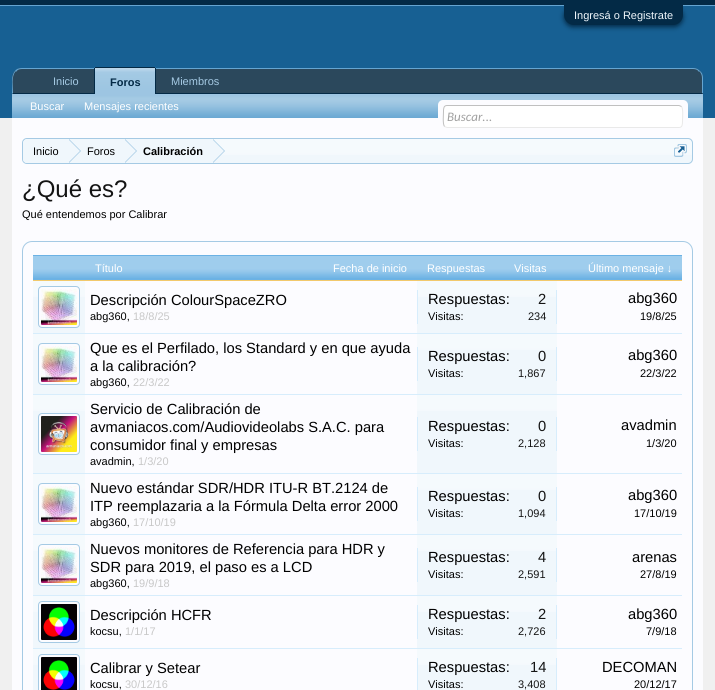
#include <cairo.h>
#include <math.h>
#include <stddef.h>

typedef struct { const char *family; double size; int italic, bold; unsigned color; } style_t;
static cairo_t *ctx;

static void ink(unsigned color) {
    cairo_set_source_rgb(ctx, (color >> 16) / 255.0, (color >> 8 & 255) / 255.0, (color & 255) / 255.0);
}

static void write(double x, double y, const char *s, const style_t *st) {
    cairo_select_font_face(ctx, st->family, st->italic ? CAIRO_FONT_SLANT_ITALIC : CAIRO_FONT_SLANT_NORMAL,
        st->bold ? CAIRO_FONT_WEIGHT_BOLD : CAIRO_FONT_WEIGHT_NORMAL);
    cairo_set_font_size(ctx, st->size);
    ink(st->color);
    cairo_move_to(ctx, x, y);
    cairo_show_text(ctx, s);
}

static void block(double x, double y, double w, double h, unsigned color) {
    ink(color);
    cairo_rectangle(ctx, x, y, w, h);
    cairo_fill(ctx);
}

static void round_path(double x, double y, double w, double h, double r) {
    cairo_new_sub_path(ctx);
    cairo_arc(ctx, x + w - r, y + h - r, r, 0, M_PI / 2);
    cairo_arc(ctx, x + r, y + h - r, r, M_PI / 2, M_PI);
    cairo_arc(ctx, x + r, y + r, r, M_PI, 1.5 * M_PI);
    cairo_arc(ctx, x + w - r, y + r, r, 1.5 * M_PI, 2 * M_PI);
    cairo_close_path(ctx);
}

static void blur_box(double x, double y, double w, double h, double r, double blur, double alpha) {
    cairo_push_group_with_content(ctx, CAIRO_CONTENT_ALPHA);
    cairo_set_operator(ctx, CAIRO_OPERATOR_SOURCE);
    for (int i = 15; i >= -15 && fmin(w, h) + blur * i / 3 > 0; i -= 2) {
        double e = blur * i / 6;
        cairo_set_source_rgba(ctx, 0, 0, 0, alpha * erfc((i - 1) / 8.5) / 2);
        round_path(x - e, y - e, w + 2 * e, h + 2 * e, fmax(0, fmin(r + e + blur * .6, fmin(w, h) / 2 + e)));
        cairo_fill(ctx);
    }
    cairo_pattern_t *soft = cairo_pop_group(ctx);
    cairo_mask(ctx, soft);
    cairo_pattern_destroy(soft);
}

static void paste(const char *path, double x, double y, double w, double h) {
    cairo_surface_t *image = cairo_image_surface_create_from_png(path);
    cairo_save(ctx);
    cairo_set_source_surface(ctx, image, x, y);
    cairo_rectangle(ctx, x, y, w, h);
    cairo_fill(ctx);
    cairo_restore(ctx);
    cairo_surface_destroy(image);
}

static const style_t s1 = {"Liberation Sans", 11, 0, 0, 0xf0f7fc};
static const style_t s2 = {"Liberation Sans", 11, 0, 0, 0xa5cae4};
static const style_t s3 = {"Liberation Sans", 11, 0, 1, 0x032a46};
static const style_t s4 = {"Liberation Sans", 11, 0, 0, 0xffffff};
static const style_t s5 = {"Carlito", 13, 1, 0, 0xa0a0a0};
static const style_t s6 = {"Liberation Sans", 11, 0, 0, 0x000000};
static const style_t s7 = {"Liberation Sans", 11, 0, 1, 0x000000};
static const style_t s8 = {"Liberation Sans", 24, 0, 0, 0x141414};
static const style_t s9 = {"Liberation Sans", 14.7, 0, 0, 0x000000};
static const style_t s10 = {"Liberation Sans", 11, 0, 0, 0xc8c8c8};
static const style_t s11 = {"Liberation Sans", 14.7, 0, 0, 0x141414};
static const style_t s12 = {"Liberation Sans", 11, 0, 0, 0x141414};

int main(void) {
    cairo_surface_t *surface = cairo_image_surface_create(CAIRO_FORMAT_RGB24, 715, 690);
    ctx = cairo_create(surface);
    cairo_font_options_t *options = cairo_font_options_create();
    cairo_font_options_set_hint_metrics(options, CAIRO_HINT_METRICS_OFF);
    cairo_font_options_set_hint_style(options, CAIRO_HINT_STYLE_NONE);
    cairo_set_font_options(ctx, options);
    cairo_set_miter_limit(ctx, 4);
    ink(0xf0f0f0);
    cairo_paint(ctx);
    block(0, 0, 715, 5, 0x032a46);
    block(0, 5, 715, 1, 0x65a5d1);
    block(0, 6, 715, 112, 0x176093);
    ink(0x032a46);
    blur_box(564, 7, 119, 20, 10, 2.5, 1);
    ink(0x032a46);
    cairo_new_path(ctx);
    cairo_move_to(ctx, 564, 5);
    cairo_line_to(ctx, 683, 5);
    cairo_line_to(ctx, 683, 15);
    cairo_curve_to(ctx, 683, 20.5, 678.5, 25, 673, 25);
    cairo_line_to(ctx, 574, 25);
    cairo_curve_to(ctx, 568.5, 25, 564, 20.5, 564, 15);
    cairo_close_path(ctx);
    cairo_fill(ctx);
    write(574, 19, "Ingresá o Registrate", &s1);
    ink(0x2b485c);
    cairo_new_path(ctx);
    cairo_move_to(ctx, 22, 68);
    cairo_line_to(ctx, 693, 68);
    cairo_curve_to(ctx, 698.5, 68, 703, 72.5, 703, 78);
    cairo_line_to(ctx, 703, 94);
    cairo_line_to(ctx, 12, 94);
    cairo_line_to(ctx, 12, 78);
    cairo_curve_to(ctx, 12, 72.5, 16.5, 68, 22, 68);
    cairo_close_path(ctx);
    cairo_fill(ctx);
    ink(0x65a5d1);
    cairo_new_path(ctx);
    cairo_move_to(ctx, 22, 68);
    cairo_curve_to(ctx, 19, 68, 16, 69, 15, 71);
    cairo_line_to(ctx, 16, 72);
    cairo_curve_to(ctx, 17, 70, 19, 69, 22, 69);
    cairo_line_to(ctx, 693, 69);
    cairo_curve_to(ctx, 696, 69, 698, 70, 699, 72);
    cairo_line_to(ctx, 700, 71);
    cairo_curve_to(ctx, 698, 69, 696, 68, 693, 68);
    cairo_close_path(ctx);
    cairo_fill(ctx);
    cairo_new_path(ctx);
    cairo_move_to(ctx, 703, 94);
    cairo_line_to(ctx, 703, 78);
    cairo_curve_to(ctx, 703, 75, 702, 72.5, 700, 71);
    cairo_line_to(ctx, 699.5, 71.5);
    cairo_curve_to(ctx, 701, 73, 702, 75.5, 702, 78);
    cairo_line_to(ctx, 702, 93);
    cairo_close_path(ctx);
    cairo_fill(ctx);
    ink(0x032a46);
    cairo_new_path(ctx);
    cairo_move_to(ctx, 703, 94);
    cairo_line_to(ctx, 702, 93);
    cairo_line_to(ctx, 13, 93);
    cairo_line_to(ctx, 12, 94);
    cairo_close_path(ctx);
    cairo_fill(ctx);
    ink(0x65a5d1);
    cairo_new_path(ctx);
    cairo_move_to(ctx, 12, 94);
    cairo_line_to(ctx, 12, 79);
    cairo_curve_to(ctx, 12.5, 76, 13, 73, 15, 71);
    cairo_line_to(ctx, 15.5, 71.5);
    cairo_curve_to(ctx, 11, 77, 13, 86.5, 13, 93);
    cairo_close_path(ctx);
    cairo_fill(ctx);
    write(53, 85, "Inicio", &s2);
    write(171, 85, "Miembros", &s2);
    ink(0x65a5d1);
    cairo_new_path(ctx);
    cairo_move_to(ctx, 96, 67);
    cairo_line_to(ctx, 154, 67);
    cairo_curve_to(ctx, 155, 67, 156, 68, 156, 69);
    cairo_line_to(ctx, 156, 94);
    cairo_line_to(ctx, 94, 94);
    cairo_line_to(ctx, 94, 69);
    cairo_curve_to(ctx, 94, 68, 95, 67, 96, 67);
    cairo_close_path(ctx);
    cairo_fill(ctx);
    paste("pic1.png", 95, 68, 60, 26);
    block(95, 67, 60, 1, 0x032a46);
    block(155, 68, 1, 26, 0x032a46);
    block(94, 68, 1, 26, 0x032a46);
    write(110, 86, "Foros", &s3);
    block(12, 94, 691, 24, 0x65a5d1);
    paste("pic2.png", 12, 94, 691, 24);
    write(30, 110, "Buscar", &s4);
    write(84, 110, "Mensajes recientes", &s4);
    block(12, 118, 691, 572, 0xfcfcff);
    round_path(438, 100, 250, 28, 5);
    cairo_fill(ctx);
    ink(0xffffff);
    round_path(443, 105, 240, 23, 4);
    cairo_fill(ctx);
    cairo_new_path(ctx);
    cairo_move_to(ctx, 681.5, 106.5);
    cairo_curve_to(ctx, 683.5, 109, 682.5, 118.5, 682.5, 121.5);
    cairo_curve_to(ctx, 682.5, 124, 682.5, 127.5, 679, 127.5);
    cairo_line_to(ctx, 447, 127.5);
    cairo_line_to(ctx, 444.5, 126.5);
    ink(0xe9e9e9);
    cairo_set_line_width(ctx, 1);
    cairo_stroke(ctx);
    cairo_new_path(ctx);
    cairo_move_to(ctx, 444.5, 126.5);
    cairo_curve_to(ctx, 442.5, 124, 443.5, 114.5, 443.5, 111.5);
    cairo_curve_to(ctx, 443.5, 109, 443.5, 105.5, 447, 105.5);
    cairo_line_to(ctx, 679, 105.5);
    cairo_line_to(ctx, 681.5, 106.5);
    ink(0xc0c0c0);
    cairo_stroke(ctx);
    write(447, 121, "Buscar...", &s5);
    ink(0xf0f7fc);
    round_path(22, 138, 671, 26, 5);
    cairo_fill(ctx);
    paste("pic3.png", 22, 139, 671, 16);
    round_path(22.5, 138.5, 670, 25, 4.5);
    ink(0xa5cae4);
    cairo_stroke(ctx);
    cairo_save(ctx);
    round_path(23, 139, 669, 24, 4);
    cairo_clip(ctx);
    ink(0xf0f7fc);
    cairo_new_path(ctx);
    cairo_move_to(ctx, 28, 139);
    cairo_line_to(ctx, 69, 139);
    cairo_line_to(ctx, 69, 164);
    cairo_line_to(ctx, 28, 164);
    cairo_curve_to(ctx, 25, 164, 23, 162, 23, 159);
    cairo_line_to(ctx, 23, 144);
    cairo_curve_to(ctx, 23, 141, 25, 139, 28, 139);
    cairo_close_path(ctx);
    cairo_fill(ctx);
    cairo_restore(ctx);
    write(33, 155, "Inicio", &s6);
    block(69, 139, 144, 16, 0xf0f7fc);
    ink(0xa5cae4);
    cairo_new_path(ctx);
    cairo_move_to(ctx, 69, 163);
    cairo_line_to(ctx, 69, 139);
    cairo_line_to(ctx, 81, 151);
    cairo_close_path(ctx);
    cairo_fill(ctx);
    ink(0xf0f7fc);
    cairo_new_path(ctx);
    cairo_move_to(ctx, 68, 163);
    cairo_line_to(ctx, 68, 139);
    cairo_line_to(ctx, 80, 151);
    cairo_close_path(ctx);
    cairo_fill(ctx);
    write(87, 155, "Foros", &s6);
    ink(0xa5cae4);
    cairo_new_path(ctx);
    cairo_move_to(ctx, 125, 163);
    cairo_line_to(ctx, 125, 139);
    cairo_line_to(ctx, 137, 151);
    cairo_close_path(ctx);
    cairo_fill(ctx);
    ink(0xf0f7fc);
    cairo_new_path(ctx);
    cairo_move_to(ctx, 124, 163);
    cairo_line_to(ctx, 124, 139);
    cairo_line_to(ctx, 136, 151);
    cairo_close_path(ctx);
    cairo_fill(ctx);
    write(143, 155, "Calibración", &s7);
    ink(0xa5cae4);
    cairo_new_path(ctx);
    cairo_move_to(ctx, 213, 163);
    cairo_line_to(ctx, 213, 139);
    cairo_line_to(ctx, 225, 151);
    cairo_close_path(ctx);
    cairo_fill(ctx);
    ink(0xf0f7fc);
    cairo_new_path(ctx);
    cairo_move_to(ctx, 212, 163);
    cairo_line_to(ctx, 212, 139);
    cairo_line_to(ctx, 224, 151);
    cairo_close_path(ctx);
    cairo_fill(ctx);
    paste("pic4.png", 674, 144, 13, 13);
    write(22, 197, "¿Qué es?", &s8);
    write(22, 218, "Qué entendemos por Calibrar", &s6);
    round_path(22.5, 241.5, 670, 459, 9.5);
    ink(0xa5cae4);
    cairo_stroke(ctx);
    block(33, 255, 649, 25, 0x6cb2e4);
    paste("pic5.png", 33, 256, 649, 22);
    block(33, 280, 649, 1, 0xf2c96c);
    write(95, 272, "Título", &s4);
    write(333, 272, "Fecha de inicio", &s4);
    write(427, 272, "Respuestas", &s4);
    write(514, 272, "Visitas", &s4);
    write(588, 272, "Último mensaje ↓", &s4);
    block(33, 333, 649, 1, 0xd7edfc);
    block(33, 281, 52, 52, 0xf0f7fc);
    paste("pic6.png", 33, 281, 52, 16);
    ink(0xfcfcff);
    round_path(38.5, 286.5, 41, 41, 3.5);
    cairo_fill_preserve(ctx);
    ink(0xa5cae4);
    cairo_stroke(ctx);
    paste("pic7.png", 41, 289, 36, 36);
    write(90, 305, "Descripción ColourSpaceZRO", &s9);
    write(90, 320, "abg360,", &s6);
    write(133, 320, "18/8/25", &s10);
    block(417, 281, 140, 52, 0xf0f7fc);
    paste("pic8.png", 417, 281, 140, 16);
    block(556, 290, 1, 34, 0xd7edfc);
    block(417, 290, 1, 34, 0xd7edfc);
    write(428, 304, "Respuestas:", &s9);
    write(538, 304, "2", &s11);
    write(428, 320, "Visitas:", &s6);
    write(528, 320, "234", &s12);
    write(628, 303, "abg360", &s9);
    write(640, 320, "19/8/25", &s6);
    block(33, 394, 649, 1, 0xd7edfc);
    block(33, 334, 52, 60, 0xf0f7fc);
    paste("pic6.png", 33, 334, 52, 16);
    ink(0xfcfcff);
    round_path(38.5, 343.5, 41, 41, 3.5);
    cairo_fill_preserve(ctx);
    ink(0xa5cae4);
    cairo_stroke(ctx);
    paste("pic7.png", 41, 346, 36, 36);
    write(90, 353, "Que es el Perfilado, los Standard y en que ayuda", &s9);
    write(90, 371, "a la calibración?", &s9);
    write(90, 386, "abg360,", &s6);
    write(133, 386, "22/3/22", &s10);
    block(417, 334, 140, 60, 0xf0f7fc);
    paste("pic8.png", 417, 334, 140, 16);
    block(556, 347, 1, 34, 0xd7edfc);
    block(417, 347, 1, 34, 0xd7edfc);
    write(428, 361, "Respuestas:", &s9);
    write(538, 361, "0", &s11);
    write(428, 377, "Visitas:", &s6);
    write(518, 377, "1,867", &s12);
    write(628, 360, "abg360", &s9);
    write(640, 377, "22/3/22", &s6);
    block(33, 473, 649, 1, 0xd7edfc);
    block(33, 395, 52, 78, 0xf0f7fc);
    paste("pic6.png", 33, 395, 52, 16);
    ink(0xfcfcff);
    round_path(38.5, 413.5, 41, 41, 3.5);
    cairo_fill_preserve(ctx);
    ink(0xa5cae4);
    cairo_stroke(ctx);
    paste("pic9.png", 41, 416, 36, 36);
    write(90, 414, "Servicio de Calibración de", &s9);
    write(90, 432, "avmaniacos.com/Audiovideolabs S.A.C. para", &s9);
    write(90, 450, "consumidor final y empresas", &s9);
    write(90, 465, "avadmin,", &s6);
    write(138, 465, "1/3/20", &s10);
    block(417, 395, 140, 78, 0xf0f7fc);
    paste("pic8.png", 417, 395, 140, 16);
    block(556, 417, 1, 34, 0xd7edfc);
    block(417, 417, 1, 34, 0xd7edfc);
    write(428, 431, "Respuestas:", &s9);
    write(538, 431, "0", &s11);
    write(428, 447, "Visitas:", &s6);
    write(518, 447, "2,128", &s12);
    write(621, 430, "avadmin", &s9);
    write(646, 447, "1/3/20", &s6);
    block(33, 534, 649, 1, 0xd7edfc);
    block(33, 474, 52, 60, 0xf0f7fc);
    paste("pic6.png", 33, 474, 52, 16);
    ink(0xfcfcff);
    round_path(38.5, 483.5, 41, 41, 3.5);
    cairo_fill_preserve(ctx);
    ink(0xa5cae4);
    cairo_stroke(ctx);
    paste("pic7.png", 41, 486, 36, 36);
    write(90, 493, "Nuevo estándar SDR/HDR ITU-R BT.2124 de", &s9);
    write(90, 511, "ITP reemplazaria a la Fórmula Delta error 2000", &s9);
    write(90, 526, "abg360,", &s6);
    write(133, 526, "17/10/19", &s10);
    block(417, 474, 140, 60, 0xf0f7fc);
    paste("pic8.png", 417, 474, 140, 16);
    block(556, 487, 1, 34, 0xd7edfc);
    block(417, 487, 1, 34, 0xd7edfc);
    write(428, 501, "Respuestas:", &s9);
    write(538, 501, "0", &s11);
    write(428, 517, "Visitas:", &s6);
    write(518, 517, "1,094", &s12);
    write(628, 500, "abg360", &s9);
    write(634, 517, "17/10/19", &s6);
    block(33, 595, 649, 1, 0xd7edfc);
    block(33, 535, 52, 60, 0xf0f7fc);
    paste("pic6.png", 33, 535, 52, 16);
    ink(0xfcfcff);
    round_path(38.5, 544.5, 41, 41, 3.5);
    cairo_fill_preserve(ctx);
    ink(0xa5cae4);
    cairo_stroke(ctx);
    paste("pic7.png", 41, 547, 36, 36);
    write(90, 554, "Nuevos monitores de Referencia para HDR y", &s9);
    write(90, 572, "SDR para 2019, el paso es a LCD", &s9);
    write(90, 587, "abg360,", &s6);
    write(133, 587, "19/9/18", &s10);
    block(417, 535, 140, 60, 0xf0f7fc);
    paste("pic8.png", 417, 535, 140, 16);
    block(556, 548, 1, 34, 0xd7edfc);
    block(417, 548, 1, 34, 0xd7edfc);
    write(428, 562, "Respuestas:", &s9);
    write(538, 562, "4", &s11);
    write(428, 578, "Visitas:", &s6);
    write(518, 578, "2,591", &s12);
    write(632, 562, "arenas", &s9);
    write(640, 578, "27/8/19", &s6);
    block(33, 648, 649, 1, 0xd7edfc);
    block(33, 596, 52, 52, 0xf0f7fc);
    paste("pic6.png", 33, 596, 52, 16);
    ink(0xfcfcff);
    round_path(38.5, 601.5, 41, 41, 3.5);
    cairo_fill_preserve(ctx);
    ink(0xa5cae4);
    cairo_stroke(ctx);
    paste("pic10.png", 41, 604, 36, 36);
    write(90, 620, "Descripción HCFR", &s9);
    write(90, 635, "kocsu,", &s6);
    write(125, 635, "1/1/17", &s10);
    block(417, 596, 140, 52, 0xf0f7fc);
    paste("pic8.png", 417, 596, 140, 16);
    block(556, 605, 1, 34, 0xd7edfc);
    block(417, 605, 1, 34, 0xd7edfc);
    write(428, 619, "Respuestas:", &s9);
    write(538, 619, "2", &s11);
    write(428, 635, "Visitas:", &s6);
    write(518, 635, "2,726", &s12);
    write(628, 619, "abg360", &s9);
    write(646, 635, "7/9/18", &s6);
    block(33, 649, 52, 41, 0xf0f7fc);
    paste("pic6.png", 33, 649, 52, 16);
    ink(0xfcfcff);
    round_path(38.5, 654.5, 41, 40, 3.5);
    cairo_fill_preserve(ctx);
    ink(0xa5cae4);
    cairo_stroke(ctx);
    paste("pic11.png", 41, 657, 36, 33);
    write(90, 673, "Calibrar y Setear", &s9);
    write(90, 688, "kocsu,", &s6);
    write(125, 688, "30/12/16", &s10);
    block(417, 649, 140, 41, 0xf0f7fc);
    paste("pic8.png", 417, 649, 140, 16);
    block(556, 658, 1, 32, 0xd7edfc);
    block(417, 658, 1, 32, 0xd7edfc);
    write(428, 672, "Respuestas:", &s9);
    write(530, 672, "14", &s11);
    write(428, 688, "Visitas:", &s6);
    write(518, 688, "3,408", &s12);
    write(602, 672, "DECOMAN", &s9);
    write(634, 688, "20/12/17", &s6);
    cairo_surface_write_to_png(surface, "screenshot.png");
    cairo_font_options_destroy(options);
    cairo_destroy(ctx);
    cairo_surface_destroy(surface);
    return 0;
}
